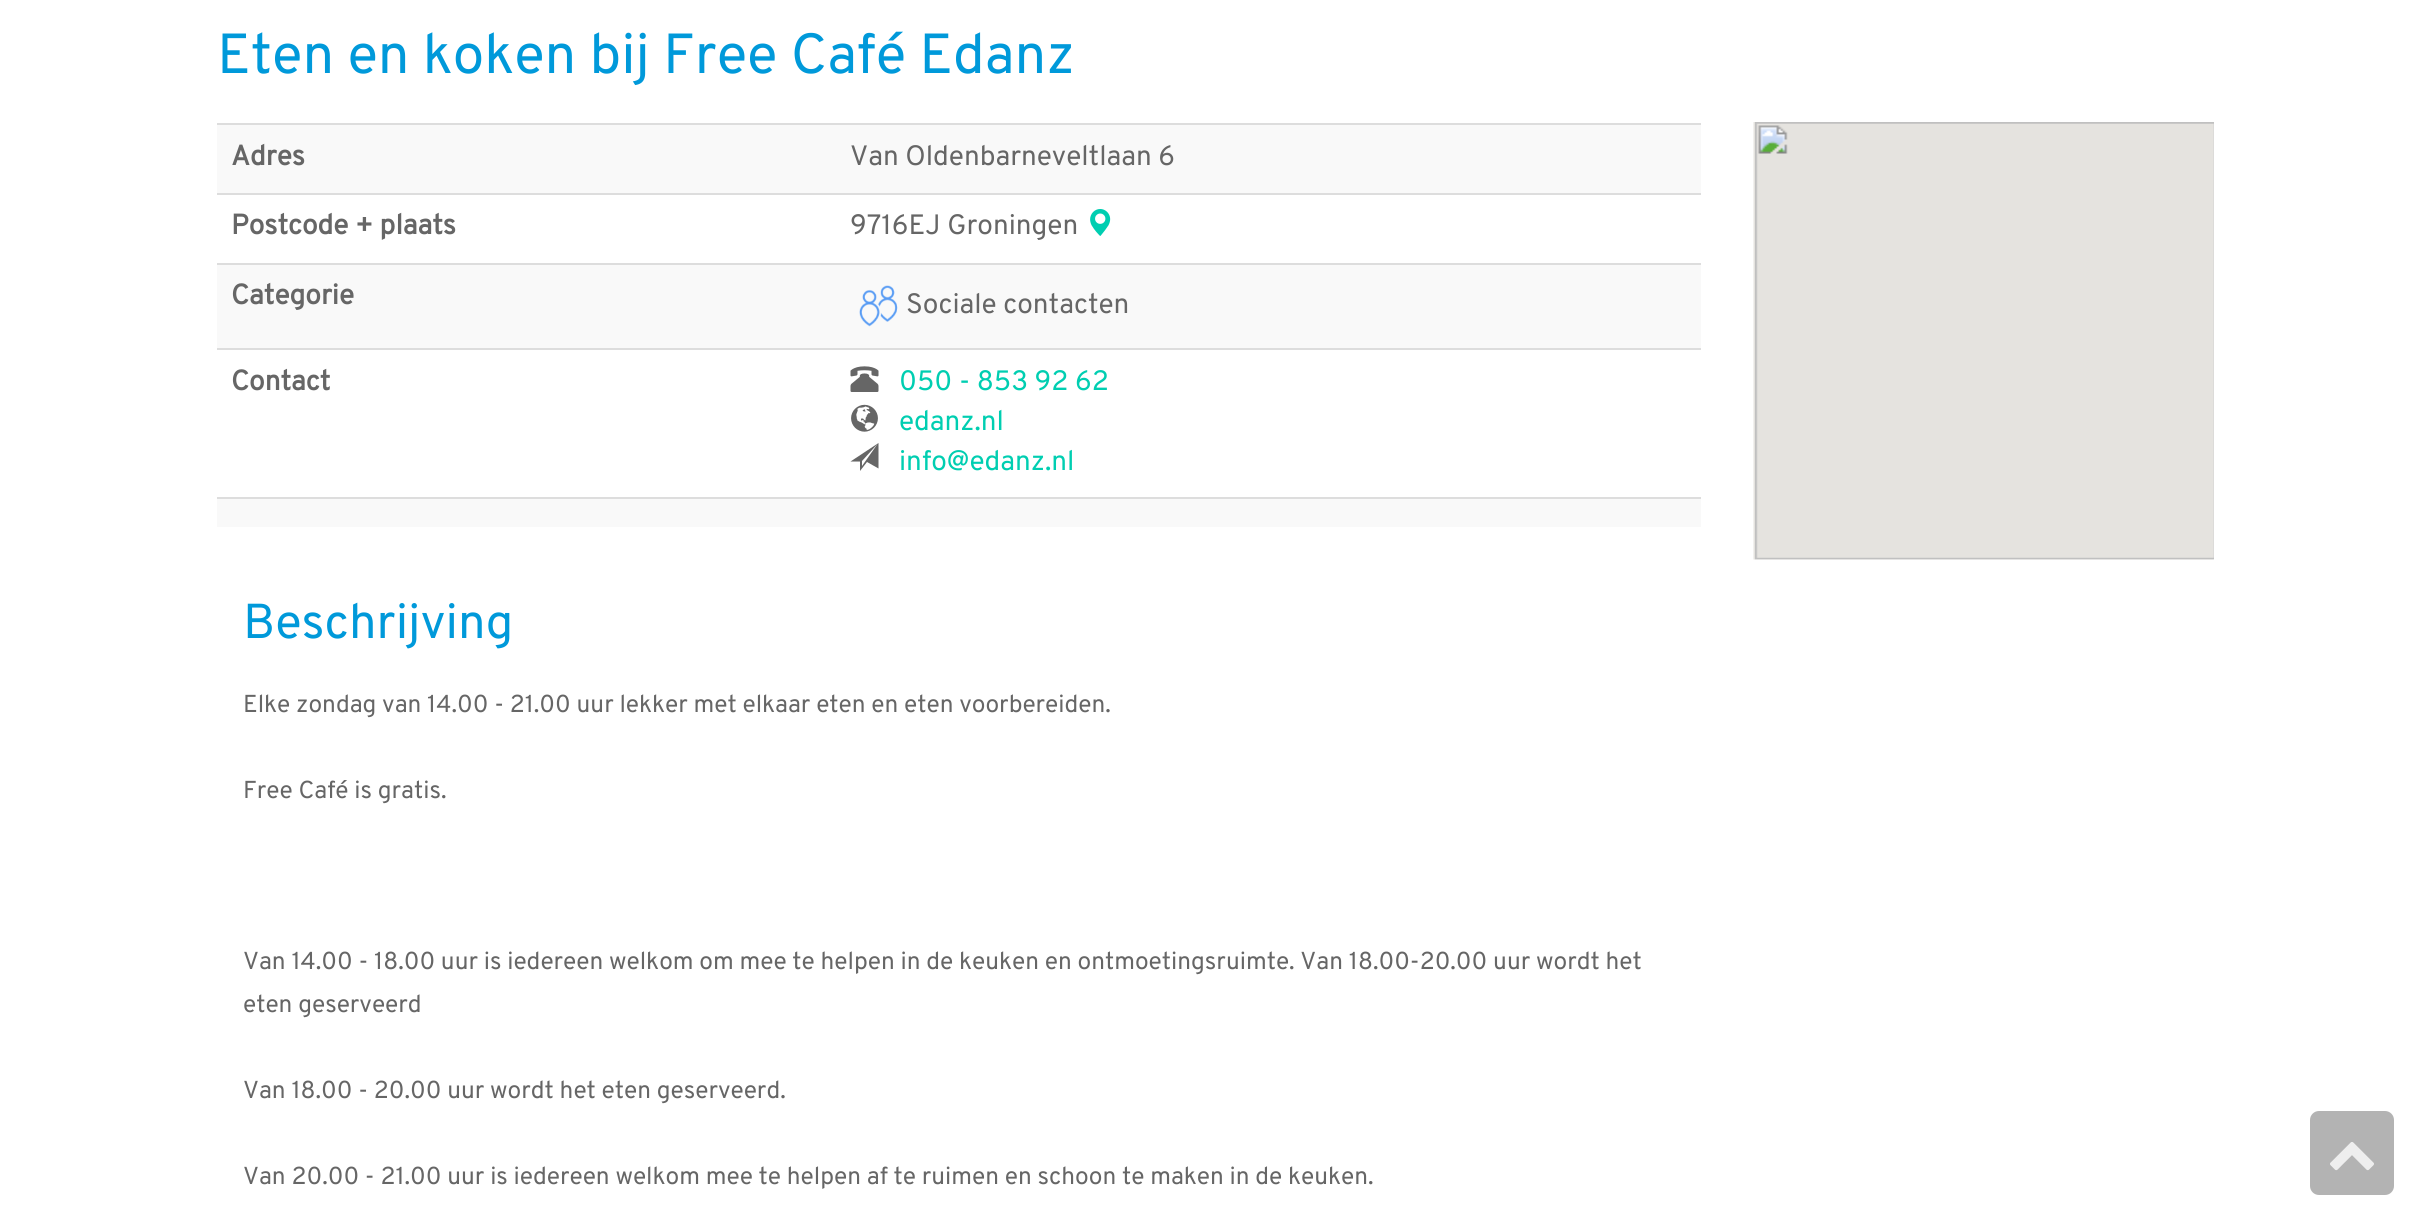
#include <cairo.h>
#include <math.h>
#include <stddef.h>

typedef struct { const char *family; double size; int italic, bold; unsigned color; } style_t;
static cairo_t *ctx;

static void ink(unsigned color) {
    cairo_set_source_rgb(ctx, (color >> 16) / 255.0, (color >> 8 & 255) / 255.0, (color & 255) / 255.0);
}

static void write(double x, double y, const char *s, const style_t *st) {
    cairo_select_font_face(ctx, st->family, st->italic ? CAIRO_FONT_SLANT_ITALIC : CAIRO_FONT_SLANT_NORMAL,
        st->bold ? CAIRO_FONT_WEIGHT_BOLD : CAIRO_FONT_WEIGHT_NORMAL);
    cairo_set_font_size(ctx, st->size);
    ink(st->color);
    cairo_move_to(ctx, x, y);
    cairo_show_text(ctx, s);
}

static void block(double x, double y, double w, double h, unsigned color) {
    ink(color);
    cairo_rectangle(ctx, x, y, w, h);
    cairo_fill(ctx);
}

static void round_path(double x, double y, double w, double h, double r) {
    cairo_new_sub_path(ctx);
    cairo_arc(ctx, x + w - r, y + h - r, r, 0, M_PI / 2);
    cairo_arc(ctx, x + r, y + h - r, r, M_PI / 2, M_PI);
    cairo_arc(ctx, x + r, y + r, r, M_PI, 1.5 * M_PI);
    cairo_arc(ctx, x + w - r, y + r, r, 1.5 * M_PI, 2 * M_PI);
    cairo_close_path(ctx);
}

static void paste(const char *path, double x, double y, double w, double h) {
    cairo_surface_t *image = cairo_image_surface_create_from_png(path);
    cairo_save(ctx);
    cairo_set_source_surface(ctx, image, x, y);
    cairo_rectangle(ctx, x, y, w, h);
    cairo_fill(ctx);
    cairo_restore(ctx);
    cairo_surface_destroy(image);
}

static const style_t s1 = {"Overpass", 56.4, 0, 0, 0x0099da};
static const style_t s2 = {"Overpass", 28, 0, 1, 0x666666};
static const style_t s3 = {"Overpass", 28, 0, 0, 0x666666};
static const style_t s4 = {"Overpass", 28, 0, 0, 0x00ceb1};
static const style_t s5 = {"Overpass", 49, 0, 0, 0x0099da};
static const style_t s6 = {"Overpass", 24.5, 0, 0, 0x666666};

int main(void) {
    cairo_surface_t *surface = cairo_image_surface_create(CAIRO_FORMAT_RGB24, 2429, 1229);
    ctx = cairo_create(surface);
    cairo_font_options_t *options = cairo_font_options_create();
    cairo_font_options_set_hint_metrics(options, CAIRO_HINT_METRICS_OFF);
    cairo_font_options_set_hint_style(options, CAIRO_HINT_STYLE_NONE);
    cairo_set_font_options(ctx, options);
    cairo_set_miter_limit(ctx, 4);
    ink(0xffffff);
    cairo_paint(ctx);
    write(217, 73, "Eten en koken bij Free Café Edanz", &s1);
    block(217, 125, 1484, 68, 0xf9f9f9);
    write(231, 165, "Adres", &s2);
    block(217, 123, 1484, 2, 0xdddddd);
    write(850, 165, "Van Oldenbarneveltlaan 6", &s3);
    write(231, 234, "Postcode + plaats", &s2);
    block(217, 193, 1484, 2, 0xdddddd);
    write(850, 234, "9716EJ Groningen", &s3);
    paste("pic1.png", 1090, 209, 21, 27);
    block(217, 265, 1484, 83, 0xf9f9f9);
    write(231, 304, "Categorie", &s2);
    block(217, 263, 1484, 2, 0xdddddd);
    paste("pic2.png", 859, 285, 39, 42);
    write(906, 313, "Sociale contacten", &s3);
    write(231, 390, "Contact", &s2);
    block(217, 348, 1484, 2, 0xdddddd);
    paste("pic3.png", 850, 366, 29, 26);
    write(899, 390, "050 - 853 92 62", &s4);
    paste("pic4.png", 851, 404, 27, 28);
    write(899, 430, "edanz.nl", &s4);
    ink(0x666666);
    cairo_new_path(ctx);
    cairo_move_to(ctx, 878.5, 468.5);
    cairo_line_to(ctx, 867, 462);
    cairo_line_to(ctx, 860, 471);
    cairo_line_to(ctx, 860, 461.5);
    cairo_line_to(ctx, 850.5, 461.5);
    cairo_line_to(ctx, 878.5, 443);
    cairo_close_path(ctx);
    cairo_move_to(ctx, 862, 461);
    cairo_line_to(ctx, 862, 466);
    cairo_line_to(ctx, 877.5, 444);
    cairo_close_path(ctx);
    cairo_fill(ctx);
    write(899, 470, "info@edanz.nl", &s4);
    block(217, 499, 1484, 28, 0xf9f9f9);
    block(217, 497, 1484, 2, 0xdddddd);
    write(243, 638, "Beschrijving", &s5);
    write(243, 712, "Elke zondag van 14.00 - 21.00 uur lekker met elkaar eten en eten voorbereiden.", &s6);
    write(243, 798, "Free Café is gratis.", &s6);
    write(243, 969, "Van 14.00 - 18.00 uur is iedereen welkom om mee te helpen in de keuken en ontmoetingsruimte. Van 18.00-20.00 uur wordt het", &s6);
    write(243, 1012, "eten geserveerd", &s6);
    write(243, 1098, "Van 18.00 - 20.00 uur wordt het eten geserveerd.", &s6);
    write(243, 1184, "Van 20.00 - 21.00 uur is iedereen welkom mee te helpen af te ruimen en schoon te maken in de keuken.", &s6);
    paste("pic5.png", 1753, 122, 461, 438);
    ink(0xb3b3b3);
    round_path(2310, 1111, 84, 84, 9);
    cairo_fill(ctx);
    paste("pic6.png", 2330, 1142, 44, 29);
    cairo_surface_write_to_png(surface, "screenshot.png");
    cairo_font_options_destroy(options);
    cairo_destroy(ctx);
    cairo_surface_destroy(surface);
    return 0;
}
